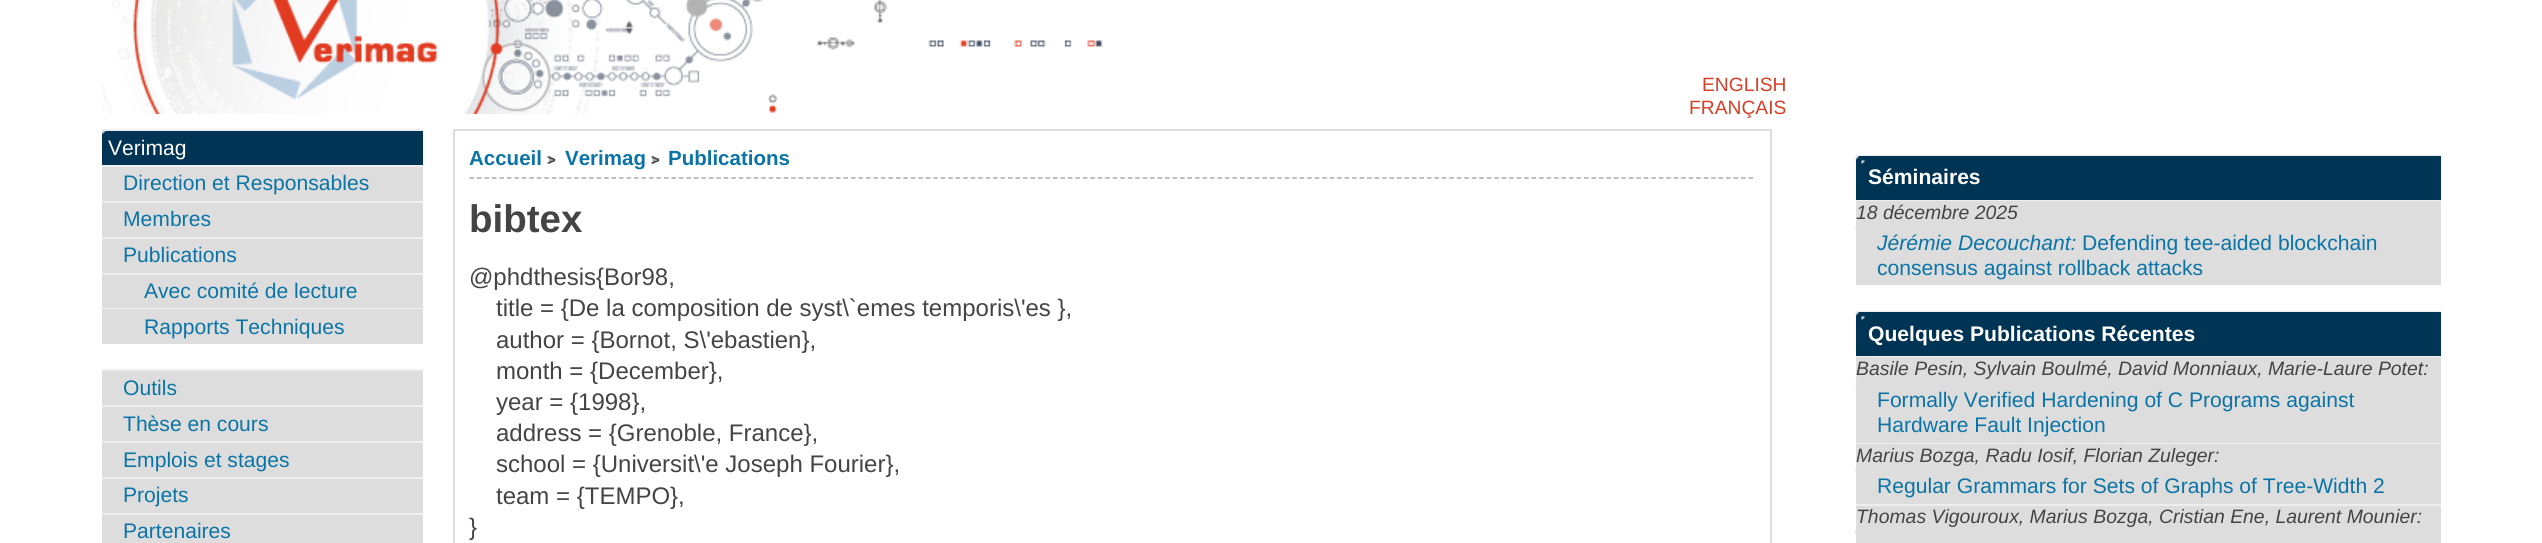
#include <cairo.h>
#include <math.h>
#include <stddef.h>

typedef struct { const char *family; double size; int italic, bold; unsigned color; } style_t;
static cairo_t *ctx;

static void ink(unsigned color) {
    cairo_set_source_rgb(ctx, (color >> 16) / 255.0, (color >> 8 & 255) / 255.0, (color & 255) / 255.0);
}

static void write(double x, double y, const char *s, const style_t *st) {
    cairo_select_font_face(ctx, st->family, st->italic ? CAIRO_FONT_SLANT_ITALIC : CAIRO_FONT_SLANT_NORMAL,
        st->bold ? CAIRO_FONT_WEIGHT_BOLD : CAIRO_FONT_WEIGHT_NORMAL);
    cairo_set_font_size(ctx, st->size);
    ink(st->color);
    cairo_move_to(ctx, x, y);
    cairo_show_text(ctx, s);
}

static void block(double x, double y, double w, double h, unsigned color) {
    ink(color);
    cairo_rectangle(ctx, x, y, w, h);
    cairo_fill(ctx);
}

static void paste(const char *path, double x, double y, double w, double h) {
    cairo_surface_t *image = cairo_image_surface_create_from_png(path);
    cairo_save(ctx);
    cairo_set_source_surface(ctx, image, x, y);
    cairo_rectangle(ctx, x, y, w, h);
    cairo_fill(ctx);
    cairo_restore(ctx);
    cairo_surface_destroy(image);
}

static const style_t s1 = {"Liberation Sans", 19.25, 0, 0, 0xd44026};
static const style_t s2 = {"Liberation Sans", 21.1, 0, 0, 0xffffff};
static const style_t s3 = {"Liberation Sans", 21.1, 0, 0, 0x0a74a6};
static const style_t s4 = {"Liberation Sans", 20.5, 0, 1, 0x0a74a6};
static const style_t s5 = {"Liberation Sans", 15, 0, 1, 0x444444};
static const style_t s6 = {"Liberation Sans", 38.5, 0, 1, 0x444444};
static const style_t s7 = {"Liberation Sans", 24, 0, 0, 0x444444};
static const style_t s8 = {"Liberation Sans", 21.1, 0, 1, 0xffffff};
static const style_t s9 = {"Liberation Sans", 19.4, 1, 0, 0x444444};
static const style_t s10 = {"Liberation Sans", 21.1, 1, 0, 0x0a74a6};

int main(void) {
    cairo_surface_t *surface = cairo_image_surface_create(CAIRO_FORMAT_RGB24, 2542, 543);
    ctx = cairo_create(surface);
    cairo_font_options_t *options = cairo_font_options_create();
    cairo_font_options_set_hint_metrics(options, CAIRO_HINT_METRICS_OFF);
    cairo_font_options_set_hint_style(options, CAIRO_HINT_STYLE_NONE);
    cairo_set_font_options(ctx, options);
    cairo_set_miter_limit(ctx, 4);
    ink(0xffffff);
    cairo_paint(ctx);
    block(1855, 531, 3, 3, 0xe0e0e1);
    paste("pic1.png", 102, 0, 1001, 114);
    write(1702, 91, "ENGLISH", &s1);
    write(1689, 114, "FRANÇAIS", &s1);
    block(102, 129, 321, 2, 0xeeeeee);
    block(102, 131, 321, 34, 0x003454);
    paste("pic2.png", 102, 130, 4, 4);
    write(108, 155, "Verimag", &s2);
    block(102, 165, 321, 2, 0xeeeeee);
    block(102, 167, 321, 34, 0xdddddd);
    paste("pic3.png", 102, 166, 3, 2);
    write(123, 190, "Direction et Responsables", &s3);
    block(102, 201, 321, 2, 0xeeeeee);
    block(102, 203, 321, 34, 0xdddddd);
    paste("pic3.png", 102, 202, 3, 2);
    write(123, 226, "Membres", &s3);
    block(102, 237, 321, 2, 0xeeeeee);
    block(102, 239, 321, 34, 0xdddddd);
    paste("pic3.png", 102, 238, 3, 2);
    write(123, 262, "Publications", &s3);
    block(102, 273, 321, 2, 0xeeeeee);
    block(102, 275, 321, 33, 0xdddddd);
    paste("pic3.png", 102, 274, 3, 2);
    write(144, 298, "Avec comité de lecture", &s3);
    block(102, 308, 321, 1, 0xeeeeee);
    block(102, 309, 321, 35, 0xdddddd);
    write(144, 334, "Rapports Techniques", &s3);
    block(102, 369, 321, 2, 0xeeeeee);
    block(102, 371, 321, 34, 0xdddddd);
    paste("pic3.png", 102, 370, 3, 2);
    write(123, 395, "Outils", &s3);
    block(102, 405, 321, 2, 0xeeeeee);
    block(102, 407, 321, 34, 0xdddddd);
    paste("pic3.png", 102, 406, 3, 2);
    write(123, 431, "Thèse en cours", &s3);
    block(102, 441, 321, 2, 0xeeeeee);
    block(102, 443, 321, 34, 0xdddddd);
    paste("pic3.png", 102, 442, 3, 2);
    write(123, 467, "Emplois et stages", &s3);
    block(102, 477, 321, 2, 0xeeeeee);
    block(102, 479, 321, 34, 0xdddddd);
    paste("pic3.png", 102, 478, 3, 2);
    write(123, 502, "Projets", &s3);
    block(102, 513, 321, 2, 0xeeeeee);
    block(102, 515, 321, 28, 0xdddddd);
    paste("pic3.png", 102, 514, 3, 2);
    write(123, 538, "Partenaires", &s3);
    cairo_rectangle(ctx, 454, 130, 1317, 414);
    ink(0xdedede);
    cairo_stroke(ctx);
    write(469, 165, "Accueil", &s4);
    paste("pic4.png", 548, 155, 6, 9);
    write(565, 165, "Verimag", &s4);
    paste("pic5.png", 652, 155, 6, 9);
    write(668, 165, "Publications", &s4);
    write(547, 165, ">", &s5);
    write(651, 165, ">", &s5);
    cairo_new_path(ctx);
    cairo_move_to(ctx, 469.5, 178);
    cairo_line_to(ctx, 1755, 178);
    ink(0xaaaaaa);
    cairo_set_line_width(ctx, 1.5);
    cairo_set_dash(ctx, (double[]){4.5, 2.98}, 2, 0);
    cairo_stroke(ctx);
    write(469, 232, "bibtex", &s6);
    write(469, 285, "@phdthesis{Bor98,", &s7);
    write(496, 316, "title = {De la composition de syst\\`emes temporis\\'es },", &s7);
    write(496, 348, "author = {Bornot, S\\'ebastien},", &s7);
    write(496, 379, "month = {December},", &s7);
    write(496, 410, "year = {1998},", &s7);
    write(496, 441, "address = {Grenoble, France},", &s7);
    write(496, 472, "school = {Universit\\'e Joseph Fourier},", &s7);
    write(496, 504, "team = {TEMPO},", &s7);
    write(469, 535, "}", &s7);
    block(1856, 155, 585, 1, 0xeeeeee);
    block(1856, 156, 585, 44, 0x003454);
    paste("pic6.png", 1855, 156, 4, 4);
    paste("pic7.png", 1861, 160, 4, 4);
    write(1868, 184, "Séminaires", &s8);
    block(1856, 200, 585, 1, 0xeeeeee);
    block(1856, 201, 585, 84, 0xdddddd);
    write(1856, 219, "18 décembre 2025", &s9);
    paste("pic8.png", 1855, 226, 3, 4);
    write(1877, 250, "Jérémie Decouchant:", &s10);
    write(2082, 250, "Defending tee-aided blockchain", &s3);
    write(1877, 275, "consensus against rollback attacks", &s3);
    block(1856, 311, 585, 1, 0xeeeeee);
    block(1856, 312, 585, 44, 0x003454);
    paste("pic6.png", 1855, 312, 4, 4);
    paste("pic7.png", 1861, 316, 4, 4);
    write(1868, 341, "Quelques Publications Récentes", &s8);
    block(1856, 356, 585, 1, 0xeeeeee);
    block(1856, 357, 585, 86, 0xdddddd);
    write(1856, 375, "Basile Pesin, Sylvain Boulmé, David Monniaux, Marie-Laure Potet:", &s9);
    paste("pic8.png", 1855, 382, 3, 4);
    write(1877, 407, "Formally Verified Hardening of C Programs against", &s3);
    write(1877, 432, "Hardware Fault Injection", &s3);
    block(1856, 443, 585, 1, 0xeeeeee);
    block(1856, 444, 585, 60, 0xdddddd);
    write(1856, 462, "Marius Bozga, Radu Iosif, Florian Zuleger:", &s9);
    paste("pic8.png", 1855, 469, 3, 4);
    write(1877, 493, "Regular Grammars for Sets of Graphs of Tree-Width 2", &s3);
    block(1856, 504, 585, 2, 0xeeeeee);
    block(1856, 506, 585, 37, 0xdddddd);
    write(1856, 523, "Thomas Vigouroux, Marius Bozga, Cristian Ene, Laurent Mounier:", &s9);
    cairo_surface_write_to_png(surface, "screenshot.png");
    cairo_font_options_destroy(options);
    cairo_destroy(ctx);
    cairo_surface_destroy(surface);
    return 0;
}
